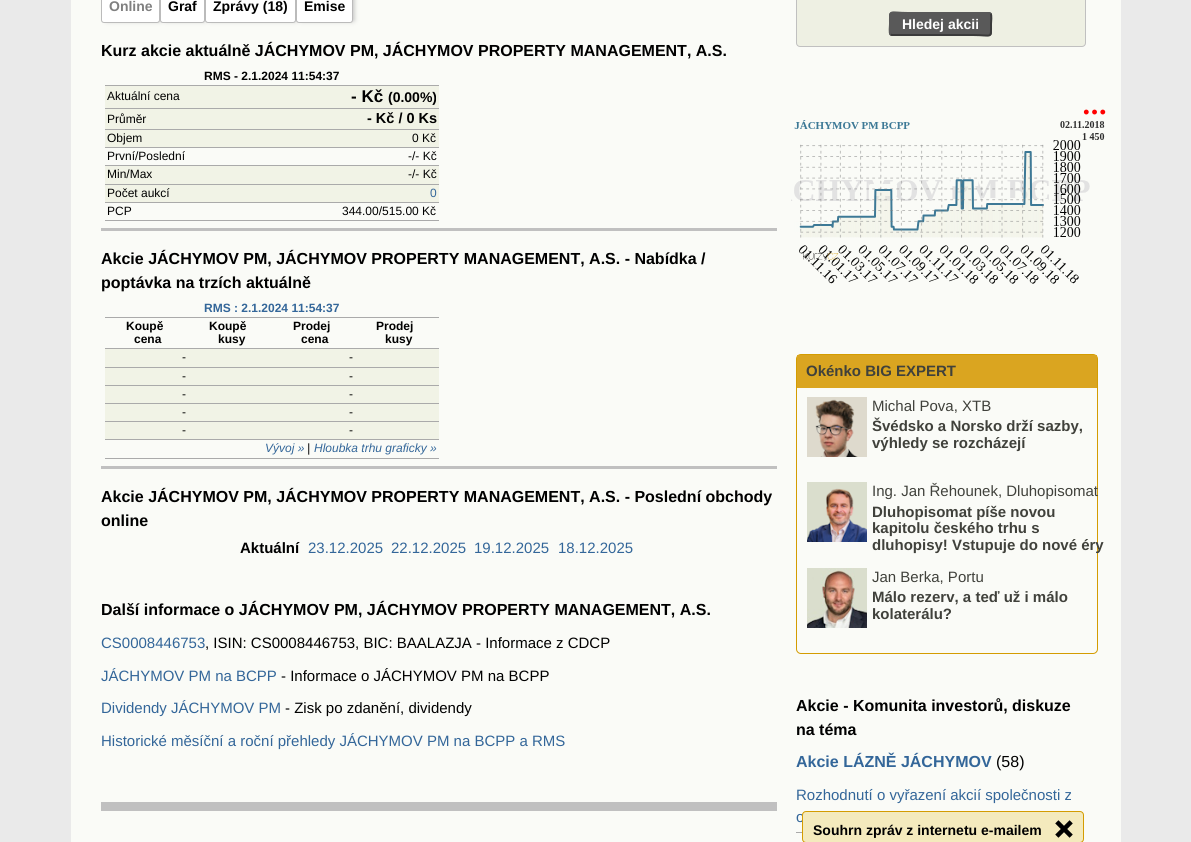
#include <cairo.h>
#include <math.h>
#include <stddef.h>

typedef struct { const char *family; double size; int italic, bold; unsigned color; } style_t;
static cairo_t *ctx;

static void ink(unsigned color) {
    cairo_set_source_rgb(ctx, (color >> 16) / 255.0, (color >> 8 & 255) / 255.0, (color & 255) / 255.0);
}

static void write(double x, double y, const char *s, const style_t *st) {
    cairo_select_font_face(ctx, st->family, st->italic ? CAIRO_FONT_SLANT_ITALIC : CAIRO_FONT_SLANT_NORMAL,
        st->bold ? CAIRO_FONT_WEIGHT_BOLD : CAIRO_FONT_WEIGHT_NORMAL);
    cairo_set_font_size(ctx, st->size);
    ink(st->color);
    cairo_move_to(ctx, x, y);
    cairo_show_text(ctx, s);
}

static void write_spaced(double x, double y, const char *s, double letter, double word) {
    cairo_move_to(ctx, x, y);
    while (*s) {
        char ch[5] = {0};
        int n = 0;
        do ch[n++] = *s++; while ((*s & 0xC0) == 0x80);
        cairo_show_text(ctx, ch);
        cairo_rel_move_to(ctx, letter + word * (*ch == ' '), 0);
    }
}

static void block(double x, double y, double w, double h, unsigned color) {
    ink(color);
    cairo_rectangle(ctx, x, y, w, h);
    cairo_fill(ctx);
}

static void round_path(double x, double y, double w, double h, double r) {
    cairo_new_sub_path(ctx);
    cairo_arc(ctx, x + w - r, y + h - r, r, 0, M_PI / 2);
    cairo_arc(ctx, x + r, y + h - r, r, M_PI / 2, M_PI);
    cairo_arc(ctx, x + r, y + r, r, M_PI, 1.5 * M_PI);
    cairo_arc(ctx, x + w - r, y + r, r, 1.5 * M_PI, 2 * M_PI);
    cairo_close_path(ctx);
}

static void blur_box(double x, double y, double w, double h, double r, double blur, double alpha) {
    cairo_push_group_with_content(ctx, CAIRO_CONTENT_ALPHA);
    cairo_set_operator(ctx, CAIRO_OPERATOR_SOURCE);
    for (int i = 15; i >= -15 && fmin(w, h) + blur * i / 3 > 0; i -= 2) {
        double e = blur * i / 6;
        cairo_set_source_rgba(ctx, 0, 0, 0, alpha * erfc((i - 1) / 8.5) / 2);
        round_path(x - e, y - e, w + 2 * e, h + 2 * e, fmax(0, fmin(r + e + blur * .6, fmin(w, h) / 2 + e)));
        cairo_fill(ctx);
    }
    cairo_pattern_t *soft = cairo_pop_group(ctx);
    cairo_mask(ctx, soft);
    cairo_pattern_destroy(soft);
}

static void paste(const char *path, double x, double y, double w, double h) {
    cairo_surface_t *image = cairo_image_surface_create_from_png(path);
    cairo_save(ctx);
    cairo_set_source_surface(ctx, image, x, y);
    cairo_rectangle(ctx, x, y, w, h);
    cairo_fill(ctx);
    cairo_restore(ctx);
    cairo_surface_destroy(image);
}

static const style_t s1 = {"Liberation Sans", 14, 0, 1, 0x808080};
static const style_t s2 = {"Liberation Sans", 14, 0, 1, 0x000000};
static const style_t s3 = {"Liberation Sans", 16, 0, 1, 0x000000};
static const style_t s4 = {"Liberation Sans", 12, 0, 1, 0x000000};
static const style_t s5 = {"Liberation Sans", 12, 0, 0, 0x000000};
static const style_t s6 = {"Liberation Sans", 17, 0, 1, 0x000000};
static const style_t s7 = {"Liberation Sans", 14.5, 0, 1, 0x000000};
static const style_t s8 = {"Liberation Sans", 12, 0, 0, 0x336699};
static const style_t s9 = {"Liberation Sans", 12, 0, 1, 0x336699};
static const style_t s10 = {"Liberation Sans", 12, 1, 0, 0x336699};
static const style_t s11 = {"Liberation Sans", 12, 1, 0, 0x000000};
static const style_t s12 = {"Liberation Sans", 15, 0, 1, 0x000000};
static const style_t s13 = {"Liberation Sans", 15, 0, 0, 0x336699};
static const style_t s14 = {"Liberation Sans", 15, 0, 0, 0x000000};
static const style_t s15 = {"Liberation Sans", 14, 0, 1, 0xffffff};
static const style_t s16 = {"Liberation Sans", 15, 0, 1, 0x40413b};
static const style_t s17 = {"Liberation Sans", 15, 0, 0, 0x40413b};
static const style_t s18 = {"Liberation Sans", 16, 0, 1, 0x336699};
static const style_t s19 = {"Liberation Sans", 16, 0, 0, 0x000000};

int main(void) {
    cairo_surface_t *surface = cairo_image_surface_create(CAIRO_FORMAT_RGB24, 1191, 842);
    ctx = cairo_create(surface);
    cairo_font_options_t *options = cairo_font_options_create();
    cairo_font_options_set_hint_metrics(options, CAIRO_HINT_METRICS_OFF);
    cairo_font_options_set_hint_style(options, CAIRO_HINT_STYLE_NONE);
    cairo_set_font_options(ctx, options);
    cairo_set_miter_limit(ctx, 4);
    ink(0xeaeaea);
    cairo_paint(ctx);
    block(71, 0, 1050, 842, 0xfafbf7);
    ink(0xbbbbbb);
    blur_box(106, -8, 55, 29, 1, 2.5, 1);
    ink(0xffffff);
    round_path(101.5, -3.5, 58, 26, 2.5);
    cairo_fill_preserve(ctx);
    ink(0xbbbbbb);
    cairo_set_line_width(ctx, 1);
    cairo_stroke(ctx);
    write(109, 11, "Online", &s1);
    ink(0xbbbbbb);
    blur_box(165, -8, 41, 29, 1, 2.5, 1);
    ink(0xffffff);
    round_path(160.5, -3.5, 44, 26, 2.5);
    cairo_fill_preserve(ctx);
    ink(0xbbbbbb);
    cairo_stroke(ctx);
    write(168, 11, "Graf", &s2);
    ink(0xbbbbbb);
    blur_box(210, -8, 87, 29, 1, 2.5, 1);
    ink(0xffffff);
    round_path(205.5, -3.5, 90, 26, 2.5);
    cairo_fill_preserve(ctx);
    ink(0xbbbbbb);
    cairo_stroke(ctx);
    write(213, 11, "Zprávy (18)", &s2);
    ink(0xbbbbbb);
    blur_box(301, -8, 53, 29, 1, 2.5, 1);
    ink(0xffffff);
    round_path(296.5, -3.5, 56, 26, 2.5);
    cairo_fill_preserve(ctx);
    ink(0xbbbbbb);
    cairo_stroke(ctx);
    write(304, 11, "Emise", &s2);
    write(101, 56, "Kurz akcie aktuálně JÁCHYMOV PM, JÁCHYMOV PROPERTY MANAGEMENT, A.S.", &s3);
    block(105, 85, 334, 1, 0xaaaaaa);
    write(204, 80, "RMS - 2.1.2024 11:54:37", &s4);
    block(105, 86, 334, 22, 0xf1f3e6);
    block(105, 108, 334, 1, 0xaaaaaa);
    write(107, 100, "Aktuální cena", &s5);
    write(351, 102, "- Kč", &s6);
    write(388, 102, "(0.00%)", &s2);
    block(105, 109, 334, 20, 0xf1f3e6);
    block(105, 129, 334, 1, 0xaaaaaa);
    write(107, 123, "Průměr", &s5);
    write(367, 123, "- Kč / 0 Ks", &s7);
    block(105, 130, 334, 17, 0xf1f3e6);
    block(105, 147, 334, 1, 0xaaaaaa);
    write(107, 142, "Objem", &s5);
    write(412, 142, "0 Kč", &s5);
    block(105, 165, 334, 1, 0xaaaaaa);
    write(107, 160, "První/Poslední", &s5);
    write(408, 160, "-/- Kč", &s5);
    block(105, 166, 334, 18, 0xf1f3e6);
    block(105, 184, 334, 1, 0xaaaaaa);
    write(107, 178, "Min/Max", &s5);
    write(408, 178, "-/- Kč", &s5);
    block(105, 185, 334, 17, 0xf1f3e6);
    block(105, 202, 334, 1, 0xaaaaaa);
    write(107, 197, "Počet aukcí", &s5);
    write(430, 197, "0", &s8);
    block(105, 220, 334, 1, 0xaaaaaa);
    write(107, 215, "PCP", &s5);
    write(342, 215, "344.00/515.00 Kč", &s5);
    block(101, 228, 676, 3, 0xc0c0c0);
    write(101, 264, "Akcie JÁCHYMOV PM, JÁCHYMOV PROPERTY MANAGEMENT, A.S. - Nabídka /", &s3);
    write(101, 288, "poptávka na trzích aktuálně", &s3);
    block(105, 317, 334, 1, 0xaaaaaa);
    write(204, 312, "RMS : 2.1.2024 11:54:37", &s9);
    block(105, 348, 334, 1, 0xaaaaaa);
    write(126, 330, "Koupě", &s4);
    write(134, 343, "cena", &s4);
    write(209, 330, "Koupě", &s4);
    write(218, 343, "kusy", &s4);
    write(293, 330, "Prodej", &s4);
    write(301, 343, "cena", &s4);
    write(376, 330, "Prodej", &s4);
    write(385, 343, "kusy", &s4);
    block(105, 349, 334, 18, 0xf1f3e6);
    block(105, 367, 334, 1, 0xaaaaaa);
    write(182, 361, "-", &s5);
    write(349, 361, "-", &s5);
    block(105, 368, 334, 17, 0xf1f3e6);
    block(105, 385, 334, 1, 0xaaaaaa);
    write(182, 380, "-", &s5);
    write(349, 380, "-", &s5);
    block(105, 386, 334, 17, 0xf1f3e6);
    block(105, 403, 334, 1, 0xaaaaaa);
    write(182, 398, "-", &s5);
    write(349, 398, "-", &s5);
    block(105, 404, 334, 17, 0xf1f3e6);
    block(105, 421, 334, 1, 0xaaaaaa);
    write(182, 416, "-", &s5);
    write(349, 416, "-", &s5);
    block(105, 422, 334, 17, 0xf1f3e6);
    block(105, 439, 334, 1, 0xaaaaaa);
    write(182, 434, "-", &s5);
    write(349, 434, "-", &s5);
    block(105, 458, 334, 1, 0xaaaaaa);
    write(265, 452, "Vývoj »", &s10);
    write(307, 452, "|", &s11);
    write(314, 452, "Hloubka trhu graficky »", &s10);
    block(101, 466, 676, 3, 0xc0c0c0);
    write(101, 502, "Akcie JÁCHYMOV PM, JÁCHYMOV PROPERTY MANAGEMENT, A.S. - Poslední obchody", &s3);
    write(101, 526, "online", &s3);
    write(240, 553, "Aktuální", &s12);
    write(308, 553, "23.12.2025", &s13);
    write(391, 553, "22.12.2025", &s13);
    write(474, 553, "19.12.2025", &s13);
    write(558, 553, "18.12.2025", &s13);
    write(101, 615, "Další informace o JÁCHYMOV PM, JÁCHYMOV PROPERTY MANAGEMENT, A.S.", &s3);
    write(101, 648, "CS0008446753", &s13);
    write(205, 648, ", ISIN: CS0008446753, BIC: BAALAZJA - Informace z CDCP", &s14);
    write(101, 681, "JÁCHYMOV PM na BCPP", &s13);
    write(281, 681, "- Informace o JÁCHYMOV PM na BCPP", &s14);
    write(101, 713, "Dividendy JÁCHYMOV PM", &s13);
    write(285, 713, "- Zisk po zdanění, dividendy", &s14);
    write(101, 746, "Historické měsíční a roční přehledy JÁCHYMOV PM na BCPP a RMS", &s13);
    block(101, 802, 676, 9, 0xc0c0c0);
    ink(0xeef0e3);
    round_path(796.5, -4.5, 289, 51, 3.5);
    cairo_fill_preserve(ctx);
    ink(0xc0c0c0);
    cairo_stroke(ctx);
    ink(0x595959);
    round_path(889, 12, 103, 24, 3);
    cairo_fill(ctx);
    cairo_new_path(ctx);
    cairo_move_to(ctx, 990.5, 13.5);
    cairo_curve_to(ctx, 992, 15, 991, 22, 991, 24);
    cairo_curve_to(ctx, 991, 39.5, 992.5, 35, 973, 35);
    cairo_line_to(ctx, 892, 35);
    cairo_line_to(ctx, 890.5, 34.5);
    ink(0x3b3b3b);
    cairo_set_line_width(ctx, 2);
    cairo_stroke(ctx);
    cairo_new_path(ctx);
    cairo_move_to(ctx, 890.5, 34.5);
    cairo_curve_to(ctx, 889, 33, 890, 26, 890, 24);
    cairo_curve_to(ctx, 890, 8.5, 888.5, 13, 908, 13);
    cairo_line_to(ctx, 989, 13);
    cairo_line_to(ctx, 990.5, 13.5);
    ink(0x595959);
    cairo_stroke(ctx);
    write(902, 29, "Hledej akcii", &s15);
    cairo_select_font_face(ctx, "Liberation Sans", CAIRO_FONT_SLANT_ITALIC, CAIRO_FONT_WEIGHT_NORMAL);
    cairo_set_font_size(ctx, 18);
    ink(0xff0000);
    write_spaced(1083, 118, "•••", 2, 0);
    paste("pic1.png", 791, 120, 314, 164);
    round_path(796.5, 354.5, 301, 299, 4.5);
    ink(0xd49c01);
    cairo_set_line_width(ctx, 1);
    cairo_stroke(ctx);
    block(797, 355, 300, 33, 0xdaa520);
    write(806, 376, "Okénko BIG EXPERT", &s16);
    paste("pic2.png", 807, 397, 60, 60);
    write(872, 411, "Michal Pova, XTB", &s17);
    write(872, 431, "Švédsko a Norsko drží sazby,", &s16);
    write(872, 448, "výhledy se rozcházejí", &s16);
    paste("pic3.png", 807, 482, 60, 60);
    write(872, 496, "Ing. Jan Řehounek, Dluhopisomat", &s17);
    write(872, 517, "Dluhopisomat píše novou", &s16);
    write(872, 533, "kapitolu českého trhu s", &s16);
    write(872, 550, "dluhopisy! Vstupuje do nové éry", &s16);
    paste("pic4.png", 807, 568, 60, 60);
    write(872, 582, "Jan Berka, Portu", &s17);
    write(872, 602, "Málo rezerv, a teď už i málo", &s16);
    write(872, 619, "kolaterálu?", &s16);
    write(796, 711, "Akcie - Komunita investorů, diskuze", &s3);
    write(796, 735, "na téma", &s3);
    write(796, 767, "Akcie LÁZNĚ JÁCHYMOV", &s18);
    write(996, 767, "(58)", &s19);
    block(796, 832, 6, 1, 0xaaaaaa);
    write(796, 800, "Rozhodnutí o vyřazení akcií společnosti z", &s13);
    write(796, 822, "o", &s13);
    ink(0xf4eabd);
    round_path(802.5, 811.5, 281, 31, 3.5);
    cairo_fill_preserve(ctx);
    ink(0xd49c01);
    cairo_stroke(ctx);
    write(813, 835, "Souhrn zpráv z internetu e-mailem", &s2);
    paste("pic5.png", 1055, 820, 18, 18);
    cairo_surface_write_to_png(surface, "screenshot.png");
    cairo_font_options_destroy(options);
    cairo_destroy(ctx);
    cairo_surface_destroy(surface);
    return 0;
}
